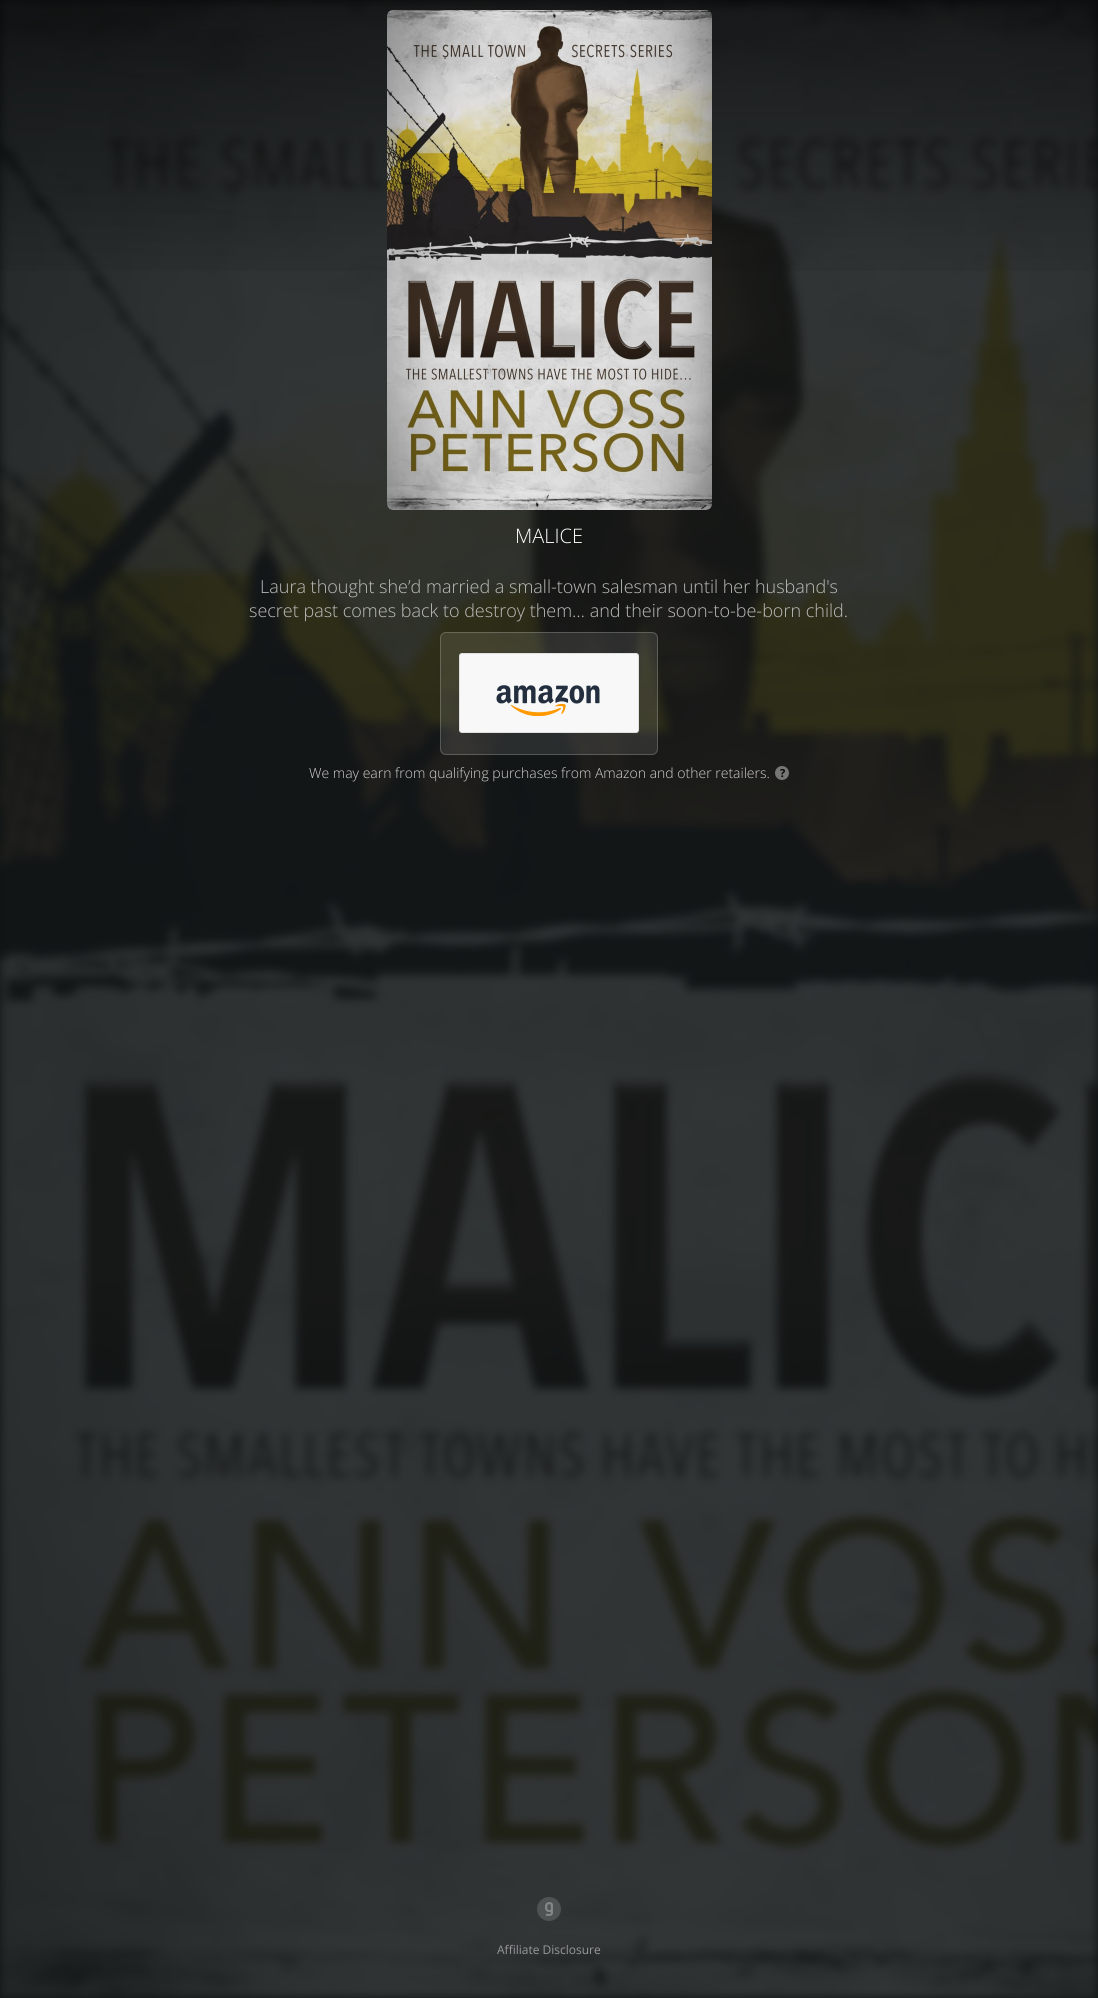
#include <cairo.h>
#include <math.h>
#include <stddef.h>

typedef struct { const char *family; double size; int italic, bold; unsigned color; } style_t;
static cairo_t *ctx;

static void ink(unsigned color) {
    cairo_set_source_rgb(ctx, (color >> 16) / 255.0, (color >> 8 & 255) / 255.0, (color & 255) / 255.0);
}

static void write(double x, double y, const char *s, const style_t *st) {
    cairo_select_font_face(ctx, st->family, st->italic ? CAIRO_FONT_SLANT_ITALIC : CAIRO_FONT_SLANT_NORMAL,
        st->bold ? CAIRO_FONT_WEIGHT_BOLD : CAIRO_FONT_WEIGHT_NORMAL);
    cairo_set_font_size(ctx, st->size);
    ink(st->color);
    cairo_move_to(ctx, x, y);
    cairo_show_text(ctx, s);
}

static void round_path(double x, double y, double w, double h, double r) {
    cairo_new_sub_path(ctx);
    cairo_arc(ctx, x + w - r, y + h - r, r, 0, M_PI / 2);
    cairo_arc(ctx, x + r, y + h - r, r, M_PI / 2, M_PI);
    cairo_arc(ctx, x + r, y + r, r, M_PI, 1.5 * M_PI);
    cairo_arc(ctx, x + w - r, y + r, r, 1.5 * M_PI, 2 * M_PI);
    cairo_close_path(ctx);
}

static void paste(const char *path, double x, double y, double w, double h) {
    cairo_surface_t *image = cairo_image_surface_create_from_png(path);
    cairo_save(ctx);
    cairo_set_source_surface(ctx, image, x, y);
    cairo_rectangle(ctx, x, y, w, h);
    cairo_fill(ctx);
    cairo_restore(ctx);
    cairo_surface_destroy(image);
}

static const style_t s1 = {"Open Sans Light", 20, 0, 0, 0xffffff};
static const style_t s2 = {"Open Sans Light", 18, 0, 0, 0xbdbebc};
static const style_t s3 = {"Open Sans Light", 14, 0, 0, 0xd1d1d1};
static const style_t s4 = {"Open Sans", 11, 0, 1, 0x050505};
static const style_t s5 = {"Open Sans", 12, 0, 0, 0x969899};

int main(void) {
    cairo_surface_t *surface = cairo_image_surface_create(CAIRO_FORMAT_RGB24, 1098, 1998);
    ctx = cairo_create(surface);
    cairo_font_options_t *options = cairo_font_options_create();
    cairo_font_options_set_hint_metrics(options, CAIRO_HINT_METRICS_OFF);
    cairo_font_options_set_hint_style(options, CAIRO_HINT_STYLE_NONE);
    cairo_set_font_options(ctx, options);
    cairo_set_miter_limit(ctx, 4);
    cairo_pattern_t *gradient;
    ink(0x0f1415);
    cairo_paint(ctx);
    paste("pic1.png", 0, 0, 1098, 1998);
    gradient = cairo_pattern_create_linear(549, 0, 549, 300);
    cairo_pattern_add_color_stop_rgba(gradient, 0, 0, 0, 0, 0.5);
    cairo_pattern_add_color_stop_rgba(gradient, 1, 0, 0, 0, 0);
    cairo_set_source(ctx, gradient);
    cairo_pattern_destroy(gradient);
    cairo_rectangle(ctx, 0, 0, 1098, 271);
    cairo_fill(ctx);
    paste("pic2.png", 387, 10, 325, 500);
    write(515, 543, "MALICE", &s1);
    write(260, 593, "Laura thought she’d married a small-town salesman until her husband's", &s2);
    write(249, 617, "secret past comes back to destroy them… and their soon-to-be-born child.", &s2);
    cairo_set_source_rgba(ctx, 1, 1, 1, 0.1);
    round_path(440, 632, 218, 123, 6);
    cairo_fill(ctx);
    round_path(440.5, 632.5, 217, 122, 5.5);
    cairo_set_source_rgba(ctx, 1, 1, 1, 0.2);
    cairo_set_line_width(ctx, 1);
    cairo_stroke(ctx);
    ink(0xf8f8f8);
    round_path(459.5, 653.5, 179, 79, 2.5);
    cairo_fill_preserve(ctx);
    ink(0xe0e0e0);
    cairo_stroke(ctx);
    paste("pic3.png", 496, 685, 104, 31);
    write(309, 778, "We may earn from qualifying purchases from Amazon and other retailers.", &s3);
    ink(0x767675);
    cairo_new_path(ctx);
    cairo_arc(ctx, 782, 773, 7, 0, 2 * M_PI);
    cairo_fill(ctx);
    write(780, 777, "?", &s4);
    ink(0x4f5353);
    cairo_new_path(ctx);
    cairo_arc(ctx, 549, 1909, 12, 0, 2 * M_PI);
    cairo_fill(ctx);
    paste("pic4.png", 545, 1902, 8, 14);
    write(497, 1954, "Affiliate Disclosure", &s5);
    cairo_surface_write_to_png(surface, "screenshot.png");
    cairo_font_options_destroy(options);
    cairo_destroy(ctx);
    cairo_surface_destroy(surface);
    return 0;
}
